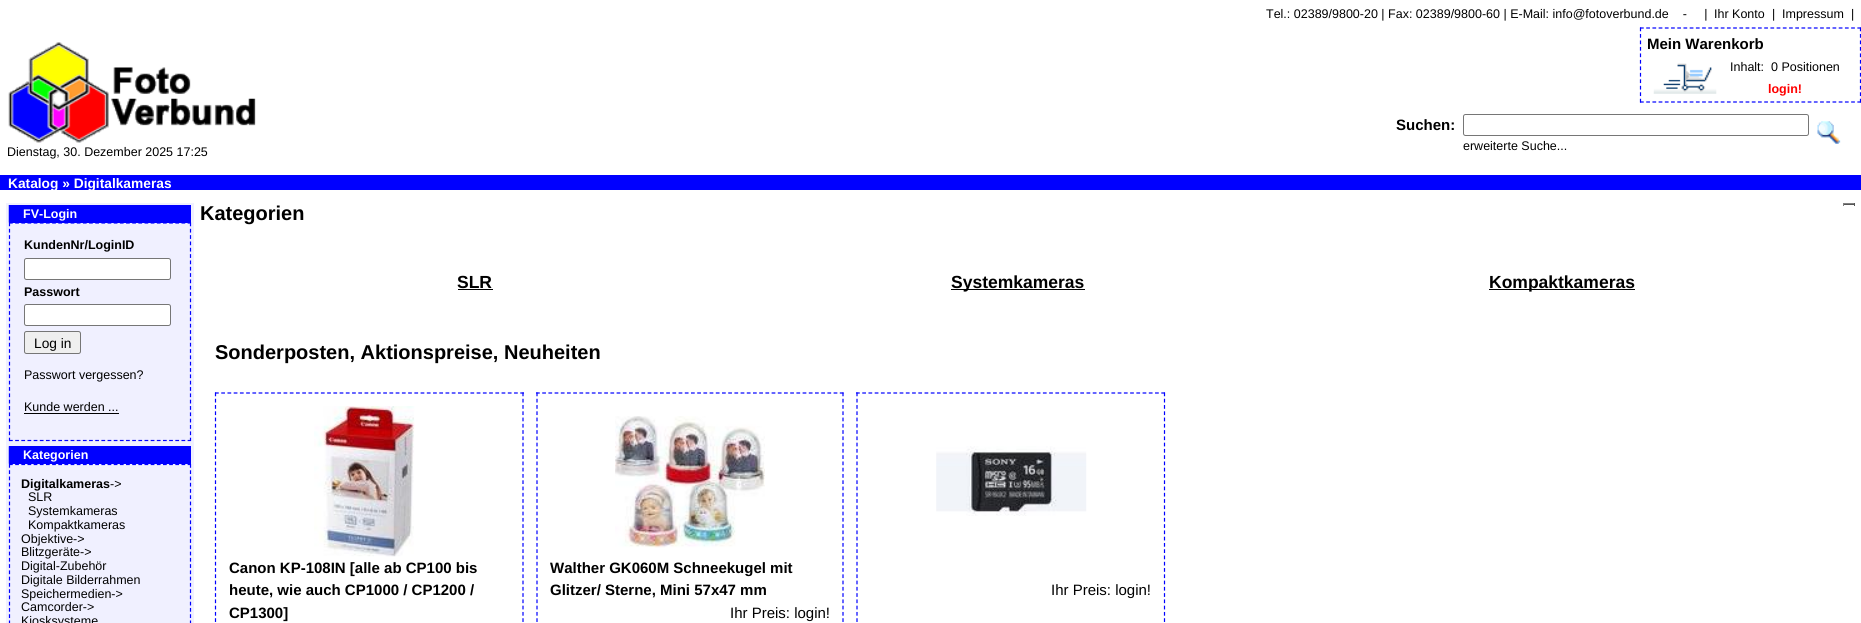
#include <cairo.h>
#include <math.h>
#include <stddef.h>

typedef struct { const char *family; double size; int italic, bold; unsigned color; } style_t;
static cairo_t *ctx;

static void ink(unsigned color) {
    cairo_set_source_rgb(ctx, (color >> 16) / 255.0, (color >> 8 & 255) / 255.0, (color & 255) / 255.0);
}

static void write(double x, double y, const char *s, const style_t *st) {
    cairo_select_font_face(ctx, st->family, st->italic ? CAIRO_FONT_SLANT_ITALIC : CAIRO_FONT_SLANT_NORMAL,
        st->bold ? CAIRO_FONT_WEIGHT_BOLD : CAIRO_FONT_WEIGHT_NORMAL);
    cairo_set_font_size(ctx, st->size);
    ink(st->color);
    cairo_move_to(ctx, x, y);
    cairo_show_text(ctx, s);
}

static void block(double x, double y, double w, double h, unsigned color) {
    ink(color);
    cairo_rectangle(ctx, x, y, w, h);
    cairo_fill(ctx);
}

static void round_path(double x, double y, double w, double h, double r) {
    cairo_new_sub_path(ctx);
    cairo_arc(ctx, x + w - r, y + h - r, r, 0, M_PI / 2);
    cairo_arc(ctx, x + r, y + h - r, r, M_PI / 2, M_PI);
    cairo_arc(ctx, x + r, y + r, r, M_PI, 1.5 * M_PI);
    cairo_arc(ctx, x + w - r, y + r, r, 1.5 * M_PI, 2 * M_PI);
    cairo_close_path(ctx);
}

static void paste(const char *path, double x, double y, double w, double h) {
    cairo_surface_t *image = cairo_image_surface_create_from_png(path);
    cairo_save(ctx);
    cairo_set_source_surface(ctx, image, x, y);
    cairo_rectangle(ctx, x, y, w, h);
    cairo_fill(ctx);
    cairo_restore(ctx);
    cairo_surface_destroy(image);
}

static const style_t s1 = {"Liberation Sans", 12.5, 0, 0, 0x000000};
static const style_t s2 = {"Liberation Sans", 15, 0, 1, 0x000000};
static const style_t s3 = {"Liberation Sans", 12.5, 0, 1, 0xff0000};
static const style_t s4 = {"Liberation Sans", 13.75, 0, 1, 0xffffff};
static const style_t s5 = {"Liberation Sans", 12.5, 0, 1, 0xffffff};
static const style_t s6 = {"Liberation Sans", 12.5, 0, 1, 0x000000};
static const style_t s7 = {"Liberation Sans", 13.75, 0, 0, 0x000000};
static const style_t s8 = {"Liberation Sans", 20, 0, 1, 0x000000};
static const style_t s9 = {"Liberation Sans", 17.5, 0, 1, 0x000000};
static const style_t s10 = {"Liberation Sans", 15, 0, 0, 0x000000};

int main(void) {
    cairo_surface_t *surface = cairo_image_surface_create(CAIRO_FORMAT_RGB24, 1861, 623);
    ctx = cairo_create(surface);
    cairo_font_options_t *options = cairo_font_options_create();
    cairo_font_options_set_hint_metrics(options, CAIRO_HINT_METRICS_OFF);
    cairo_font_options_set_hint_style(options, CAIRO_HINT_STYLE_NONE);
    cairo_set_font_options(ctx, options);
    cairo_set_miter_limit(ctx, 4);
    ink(0xffffff);
    cairo_paint(ctx);
    write(1266, 18, "Tel.: 02389/9800-20 | Fax: 02389/9800-60 | E-Mail: info@fotoverbund.de    -     |", &s1);
    write(1714, 18, "Ihr Konto", &s1);
    write(1772, 18, "|", &s1);
    write(1782, 18, "Impressum", &s1);
    write(1851, 18, "|", &s1);
    cairo_new_path(ctx);
    cairo_move_to(ctx, 1640, 28);
    cairo_line_to(ctx, 1861, 28);
    ink(0x0000ff);
    cairo_set_line_width(ctx, 1.2);
    cairo_set_dash(ctx, (double[]){3.75, 2.46}, 2, 0);
    cairo_stroke(ctx);
    cairo_new_path(ctx);
    cairo_move_to(ctx, 1860.5, 27.5);
    cairo_line_to(ctx, 1860.5, 102.5);
    cairo_set_dash(ctx, (double[]){3.75, 2.73}, 2, 0);
    cairo_stroke(ctx);
    cairo_new_path(ctx);
    cairo_move_to(ctx, 1640, 102);
    cairo_line_to(ctx, 1861, 102);
    cairo_set_dash(ctx, (double[]){3.75, 2.46}, 2, 0);
    cairo_stroke(ctx);
    cairo_new_path(ctx);
    cairo_move_to(ctx, 1640.5, 27.5);
    cairo_line_to(ctx, 1640.5, 102.5);
    cairo_set_dash(ctx, (double[]){3.75, 2.73}, 2, 0);
    cairo_stroke(ctx);
    write(1647, 49, "Mein Warenkorb", &s2);
    paste("pic1.png", 1653, 63, 64, 31);
    write(1730, 71, "Inhalt:", &s1);
    write(1771, 71, "0 Positionen", &s1);
    write(1768, 93, "login!", &s3);
    write(1396, 130, "Suchen:", &s2);
    paste("pic2.png", 1817, 121, 24, 23);
    round_path(1463.5, 114.5, 345, 21, 2);
    ink(0x767676);
    cairo_set_line_width(ctx, 1);
    cairo_set_dash(ctx, NULL, 0, 0);
    cairo_stroke(ctx);
    write(1463, 150, "erweiterte Suche...", &s1);
    paste("pic3.png", 8, 42, 248, 101);
    write(7, 156, "Dienstag, 30. Dezember 2025 17:25", &s1);
    block(0, 175, 1861, 15, 0x0000ff);
    write(8, 188, "Katalog » Digitalkameras", &s4);
    block(1843, 203, 12, 1, 0x808080);
    block(1854, 203, 1, 3, 0x555555);
    block(1843, 204, 12, 1, 0x555555);
    block(1843, 203, 1, 3, 0x808080);
    block(6, 203, 188, 420, 0xf0f0ff);
    block(9, 205, 182, 18, 0x0000ff);
    cairo_new_path(ctx);
    cairo_move_to(ctx, 9, 223);
    cairo_line_to(ctx, 191, 223);
    cairo_set_line_width(ctx, 1.2);
    cairo_set_dash(ctx, (double[]){3.75, 2.41}, 2, 0);
    cairo_stroke(ctx);
    cairo_new_path(ctx);
    cairo_move_to(ctx, 190.5, 222.5);
    cairo_line_to(ctx, 190.5, 441);
    cairo_set_dash(ctx, (double[]){3.75, 2.58}, 2, 0);
    cairo_stroke(ctx);
    cairo_new_path(ctx);
    cairo_move_to(ctx, 9, 440.5);
    cairo_line_to(ctx, 191, 440.5);
    cairo_set_dash(ctx, (double[]){3.75, 2.41}, 2, 0);
    cairo_stroke(ctx);
    cairo_new_path(ctx);
    cairo_move_to(ctx, 9.5, 222.5);
    cairo_line_to(ctx, 9.5, 441);
    cairo_set_dash(ctx, (double[]){3.75, 2.58}, 2, 0);
    cairo_stroke(ctx);
    paste("pic4.png", 8, 205, 1, 18);
    write(23, 218, "FV-Login", &s5);
    write(24, 249, "KundenNr/LoginID", &s6);
    ink(0xffffff);
    round_path(24.5, 258.5, 146, 21, 2);
    cairo_fill_preserve(ctx);
    ink(0x767676);
    cairo_set_line_width(ctx, 1);
    cairo_set_dash(ctx, NULL, 0, 0);
    cairo_stroke(ctx);
    write(24, 296, "Passwort", &s6);
    ink(0xffffff);
    round_path(24.5, 304.5, 146, 21, 2);
    cairo_fill_preserve(ctx);
    ink(0x767676);
    cairo_stroke(ctx);
    ink(0xefefef);
    round_path(24.5, 331.5, 56, 22, 2);
    cairo_fill_preserve(ctx);
    ink(0x767676);
    cairo_stroke(ctx);
    write(34, 348, "Log in", &s7);
    write(24, 379, "Passwort vergessen?", &s1);
    write(24, 411, "Kunde werden ...", &s1);
    block(24, 413, 95, 1, 0x000000);
    block(9, 446, 182, 18, 0x0000ff);
    paste("pic5.png", 8, 446, 1, 18);
    write(23, 459, "Kategorien", &s5);
    cairo_new_path(ctx);
    cairo_move_to(ctx, 9, 464.5);
    cairo_line_to(ctx, 191, 464.5);
    ink(0x0000ff);
    cairo_set_line_width(ctx, 1.2);
    cairo_set_dash(ctx, (double[]){3.75, 2.41}, 2, 0);
    cairo_stroke(ctx);
    cairo_new_path(ctx);
    cairo_move_to(ctx, 190.5, 464);
    cairo_line_to(ctx, 190.5, 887.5);
    cairo_set_dash(ctx, (double[]){3.75, 2.51}, 2, 0);
    cairo_stroke(ctx);
    cairo_new_path(ctx);
    cairo_move_to(ctx, 9.5, 464);
    cairo_line_to(ctx, 9.5, 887.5);
    cairo_stroke(ctx);
    write(21, 488, "Digitalkameras", &s6);
    write(110, 488, "->", &s1);
    write(28, 501, "SLR", &s1);
    write(28, 515, "Systemkameras", &s1);
    write(28, 529, "Kompaktkameras", &s1);
    write(21, 543, "Objektive->", &s1);
    write(21, 556, "Blitzgeräte->", &s1);
    write(21, 570, "Digital-Zubehör", &s1);
    write(21, 584, "Digitale Bilderrahmen", &s1);
    write(21, 598, "Speichermedien->", &s1);
    write(21, 611, "Camcorder->", &s1);
    write(21, 625, "Kiosksysteme", &s1);
    write(200, 220, "Kategorien", &s8);
    write(457, 288, "SLR", &s9);
    block(458, 289, 35, 1, 0x000000);
    block(951, 289, 134, 1, 0x000000);
    write(951, 288, "Systemkameras", &s9);
    block(1489, 289, 146, 1, 0x000000);
    write(1489, 288, "Kompaktkameras", &s9);
    write(215, 359, "Sonderposten, Aktionspreise, Neuheiten", &s8);
    cairo_new_path(ctx);
    cairo_move_to(ctx, 215, 393);
    cairo_line_to(ctx, 524, 393);
    ink(0x0000ff);
    cairo_set_dash(ctx, (double[]){3.75, 2.48}, 2, 0);
    cairo_stroke(ctx);
    cairo_new_path(ctx);
    cairo_move_to(ctx, 523, 392.5);
    cairo_line_to(ctx, 523, 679);
    cairo_set_dash(ctx, (double[]){3.75, 2.52}, 2, 0);
    cairo_stroke(ctx);
    cairo_new_path(ctx);
    cairo_move_to(ctx, 215.5, 392.5);
    cairo_line_to(ctx, 215.5, 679);
    cairo_stroke(ctx);
    paste("pic6.png", 314, 406, 101, 151);
    write(229, 573, "Canon KP-108IN [alle ab CP100 bis", &s2);
    write(229, 595, "heute, wie auch CP1000 / CP1200 /", &s2);
    write(229, 618, "CP1300]", &s2);
    cairo_new_path(ctx);
    cairo_move_to(ctx, 536, 393);
    cairo_line_to(ctx, 844, 393);
    ink(0x0000ff);
    cairo_set_dash(ctx, (double[]){3.75, 2.45}, 2, 0);
    cairo_stroke(ctx);
    cairo_new_path(ctx);
    cairo_move_to(ctx, 843, 392.5);
    cairo_line_to(ctx, 843, 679);
    cairo_set_dash(ctx, (double[]){3.75, 2.52}, 2, 0);
    cairo_stroke(ctx);
    cairo_new_path(ctx);
    cairo_move_to(ctx, 537, 392.5);
    cairo_line_to(ctx, 537, 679);
    cairo_stroke(ctx);
    paste("pic7.png", 615, 416, 150, 132);
    write(550, 573, "Walther GK060M Schneekugel mit", &s2);
    write(550, 595, "Glitzer/ Sterne, Mini 57x47 mm", &s2);
    write(730, 618, "Ihr Preis: login!", &s10);
    cairo_new_path(ctx);
    cairo_move_to(ctx, 856, 393);
    cairo_line_to(ctx, 1165, 393);
    ink(0x0000ff);
    cairo_set_dash(ctx, (double[]){3.75, 2.48}, 2, 0);
    cairo_stroke(ctx);
    cairo_new_path(ctx);
    cairo_move_to(ctx, 1164.5, 392.5);
    cairo_line_to(ctx, 1164.5, 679);
    cairo_set_dash(ctx, (double[]){3.75, 2.52}, 2, 0);
    cairo_stroke(ctx);
    cairo_new_path(ctx);
    cairo_move_to(ctx, 857, 392.5);
    cairo_line_to(ctx, 857, 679);
    cairo_stroke(ctx);
    paste("pic8.png", 936, 446, 151, 70);
    write(1051, 595, "Ihr Preis: login!", &s10);
    cairo_surface_write_to_png(surface, "screenshot.png");
    cairo_font_options_destroy(options);
    cairo_destroy(ctx);
    cairo_surface_destroy(surface);
    return 0;
}
